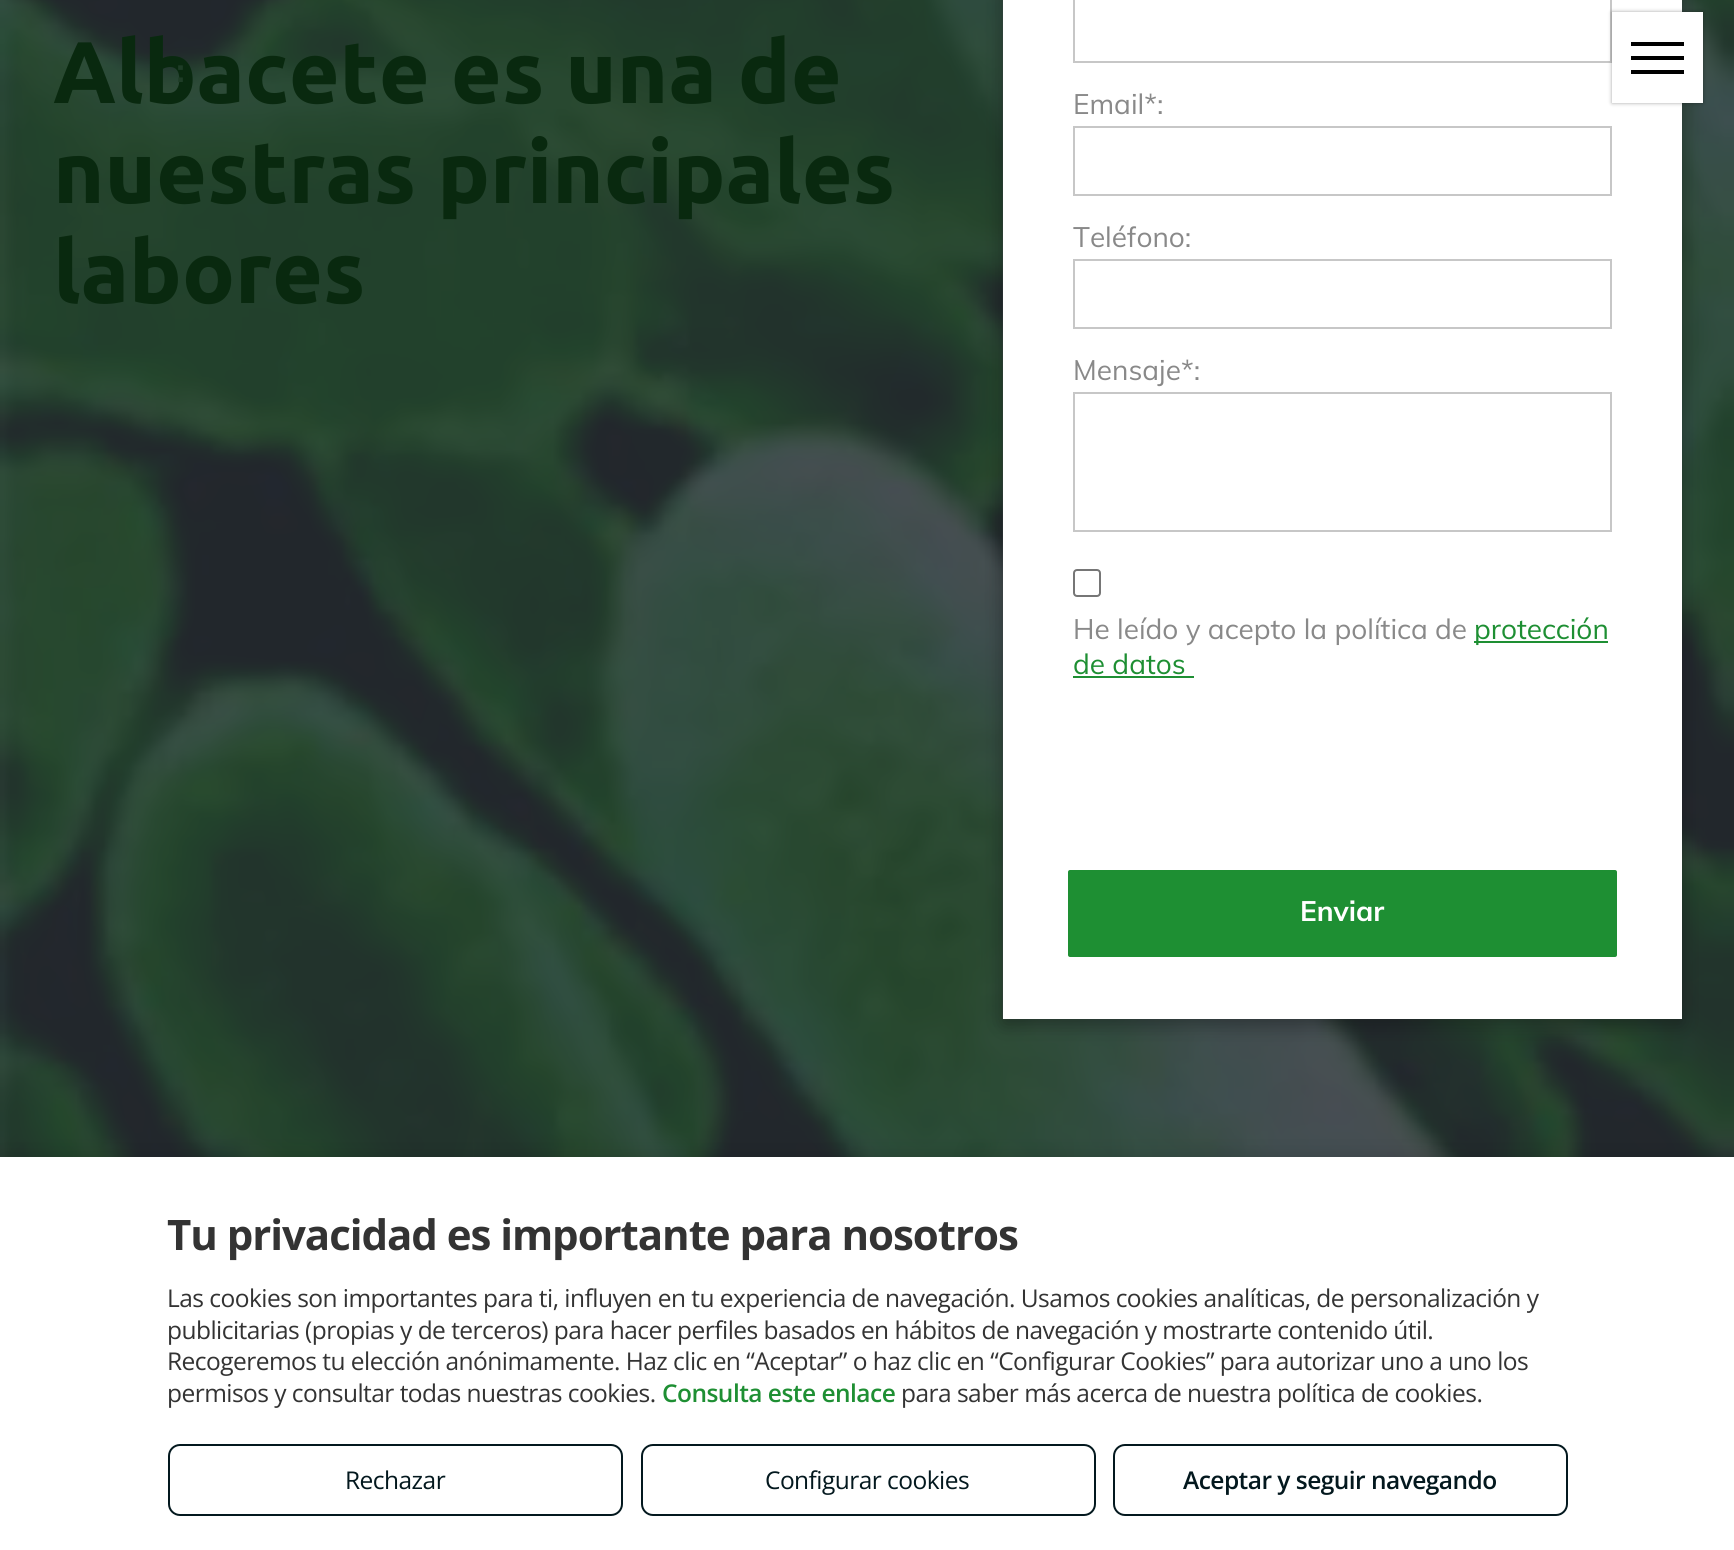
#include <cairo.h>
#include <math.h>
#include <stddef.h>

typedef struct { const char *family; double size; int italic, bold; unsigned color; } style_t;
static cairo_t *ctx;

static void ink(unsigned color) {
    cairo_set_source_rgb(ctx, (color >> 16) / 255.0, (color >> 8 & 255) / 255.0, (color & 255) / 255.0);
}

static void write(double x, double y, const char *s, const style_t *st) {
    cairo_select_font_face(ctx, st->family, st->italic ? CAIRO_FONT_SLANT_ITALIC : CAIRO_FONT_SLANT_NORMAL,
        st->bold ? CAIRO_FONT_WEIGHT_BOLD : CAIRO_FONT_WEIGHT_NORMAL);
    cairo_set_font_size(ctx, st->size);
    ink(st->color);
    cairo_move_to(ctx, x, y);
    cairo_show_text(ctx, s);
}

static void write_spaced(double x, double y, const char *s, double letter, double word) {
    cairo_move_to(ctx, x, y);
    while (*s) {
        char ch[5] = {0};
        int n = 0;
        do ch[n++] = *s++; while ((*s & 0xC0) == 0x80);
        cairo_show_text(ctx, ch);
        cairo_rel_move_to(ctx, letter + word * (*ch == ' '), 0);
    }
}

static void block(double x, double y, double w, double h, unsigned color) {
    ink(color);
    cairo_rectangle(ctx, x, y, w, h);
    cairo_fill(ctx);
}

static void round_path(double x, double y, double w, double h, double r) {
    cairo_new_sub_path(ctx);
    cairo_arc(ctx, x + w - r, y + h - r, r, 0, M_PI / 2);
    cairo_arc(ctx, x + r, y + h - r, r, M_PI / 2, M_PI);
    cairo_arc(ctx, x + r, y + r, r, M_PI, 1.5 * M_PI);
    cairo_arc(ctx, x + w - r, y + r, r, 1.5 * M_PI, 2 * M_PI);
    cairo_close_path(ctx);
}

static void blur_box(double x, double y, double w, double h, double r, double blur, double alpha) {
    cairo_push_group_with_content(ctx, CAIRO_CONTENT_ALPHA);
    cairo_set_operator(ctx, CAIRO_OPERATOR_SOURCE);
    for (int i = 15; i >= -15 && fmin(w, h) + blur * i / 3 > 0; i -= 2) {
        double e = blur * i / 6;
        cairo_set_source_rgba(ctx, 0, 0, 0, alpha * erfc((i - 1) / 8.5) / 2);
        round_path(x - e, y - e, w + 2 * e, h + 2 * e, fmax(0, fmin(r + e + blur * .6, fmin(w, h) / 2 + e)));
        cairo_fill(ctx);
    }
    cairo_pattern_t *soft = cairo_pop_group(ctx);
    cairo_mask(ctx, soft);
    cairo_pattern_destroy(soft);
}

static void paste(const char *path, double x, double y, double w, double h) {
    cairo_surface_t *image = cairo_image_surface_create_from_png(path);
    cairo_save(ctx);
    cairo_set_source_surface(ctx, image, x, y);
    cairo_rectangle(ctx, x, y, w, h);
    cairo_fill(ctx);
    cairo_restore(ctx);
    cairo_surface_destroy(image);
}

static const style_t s1 = {"Ubuntu", 87.5, 0, 1, 0x09290f};
static const style_t s2 = {"Muli", 28, 0, 0, 0x898989};
static const style_t s3 = {"Muli", 28, 0, 0, 0x1e8f33};
static const style_t s4 = {"Muli", 28, 0, 1, 0xffffff};
static const style_t s5 = {"Liberation Sans", 33, 0, 1, 0x1e3c26};

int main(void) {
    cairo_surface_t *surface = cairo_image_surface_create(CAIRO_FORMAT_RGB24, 1734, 1550);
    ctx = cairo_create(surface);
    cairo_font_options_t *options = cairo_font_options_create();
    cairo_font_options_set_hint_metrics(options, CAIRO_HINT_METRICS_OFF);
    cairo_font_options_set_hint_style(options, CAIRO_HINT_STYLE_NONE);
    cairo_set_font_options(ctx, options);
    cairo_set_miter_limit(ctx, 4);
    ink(0xffffff);
    cairo_paint(ctx);
    paste("pic1.png", 0, 0, 1734, 1157);
    write(53, 103, "Albacete es una de", &s1);
    write(53, 203, "nuestras principales", &s1);
    write(53, 303, "labores", &s1);
    ink(0x000000);
    blur_box(1003, -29, 679, 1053, 0, 9.5, 0.25);
    block(1003, 0, 679, 1019, 0xffffff);
    cairo_rectangle(ctx, 1074, -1, 537, 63);
    ink(0xc7c7c7);
    cairo_stroke(ctx);
    write(1073, 114, "Email*:", &s2);
    cairo_rectangle(ctx, 1074, 127, 537, 68);
    ink(0xc7c7c7);
    cairo_stroke(ctx);
    write(1073, 247, "Teléfono:", &s2);
    cairo_rectangle(ctx, 1074, 260, 537, 68);
    ink(0xc7c7c7);
    cairo_stroke(ctx);
    write(1073, 380, "Mensaje*:", &s2);
    cairo_rectangle(ctx, 1074, 393, 537, 138);
    ink(0xc7c7c7);
    cairo_stroke(ctx);
    round_path(1074, 570, 26, 26, 3);
    ink(0x767676);
    cairo_stroke(ctx);
    write(1073, 639, "He leído y acepto la política de", &s2);
    block(1474, 641, 134, 2, 0x1e8f33);
    write(1474, 639, "protección", &s3);
    write(1073, 674, "de datos", &s3);
    block(1073, 676, 121, 2, 0x1e8f33);
    round_path(1068, 870, 549, 87, 2);
    cairo_fill(ctx);
    write(1300, 921, "Enviar", &s4);
    ink(0x000000);
    blur_box(1612, 12, 91, 91, 0, 2, 0.35);
    block(1612, 12, 91, 91, 0xffffff);
    block(1631, 42, 53, 4, 0x000000);
    block(1631, 56, 53, 4, 0x000000);
    block(1631, 70, 53, 4, 0x000000);
    write(175, 82, ":", &s5);
    ink(0x000000);
    blur_box(0, 1153, 1734, 394, 0, 9, 0.1);
    block(0, 1157, 1734, 393, 0xffffff);
    cairo_select_font_face(ctx, "Open Sans", CAIRO_FONT_SLANT_NORMAL, CAIRO_FONT_WEIGHT_BOLD);
    cairo_set_font_size(ctx, 42);
    ink(0x333333);
    write_spaced(167, 1250, "Tu privacidad es importante para nosotros", -1.05, 0);
    cairo_select_font_face(ctx, "Open Sans", CAIRO_FONT_SLANT_NORMAL, CAIRO_FONT_WEIGHT_NORMAL);
    cairo_set_font_size(ctx, 24.5);
    write_spaced(167, 1307, "Las cookies son importantes para ti, influyen en tu experiencia de navegación. Usamos cookies analíticas, de personalización y", -0.53, 0);
    write_spaced(167, 1339, "publicitarias (propias y de terceros) para hacer perfiles basados en hábitos de navegación y mostrarte contenido útil.", -0.53, 0);
    write_spaced(167, 1370, "Recogeremos tu elección anónimamente. Haz clic en “Aceptar” o haz clic en “Configurar Cookies” para autorizar uno a uno los", -0.53, 0);
    write_spaced(167, 1402, "permisos y consultar todas nuestras cookies.", -0.53, 0);
    cairo_select_font_face(ctx, "Open Sans SemiBold", CAIRO_FONT_SLANT_NORMAL, CAIRO_FONT_WEIGHT_NORMAL);
    ink(0x1e8f33);
    write_spaced(662, 1402, "Consulta este enlace", -0.53, 0);
    cairo_select_font_face(ctx, "Open Sans", CAIRO_FONT_SLANT_NORMAL, CAIRO_FONT_WEIGHT_NORMAL);
    ink(0x333333);
    write_spaced(901, 1402, "para saber más acerca de nuestra política de cookies.", -0.53, 0);
    round_path(169, 1445, 453, 70, 11);
    ink(0x03181e);
    cairo_stroke(ctx);
    write_spaced(345, 1489, "Rechazar", -0.53, 0);
    round_path(642, 1445, 453, 70, 11);
    cairo_stroke(ctx);
    write_spaced(765, 1489, "Configurar cookies", -0.53, 0);
    round_path(1114, 1445, 453, 70, 11);
    cairo_stroke(ctx);
    cairo_select_font_face(ctx, "Open Sans SemiBold", CAIRO_FONT_SLANT_NORMAL, CAIRO_FONT_WEIGHT_NORMAL);
    write_spaced(1183, 1489, "Aceptar y seguir navegando", -0.53, 0);
    cairo_surface_write_to_png(surface, "screenshot.png");
    cairo_font_options_destroy(options);
    cairo_destroy(ctx);
    cairo_surface_destroy(surface);
    return 0;
}
